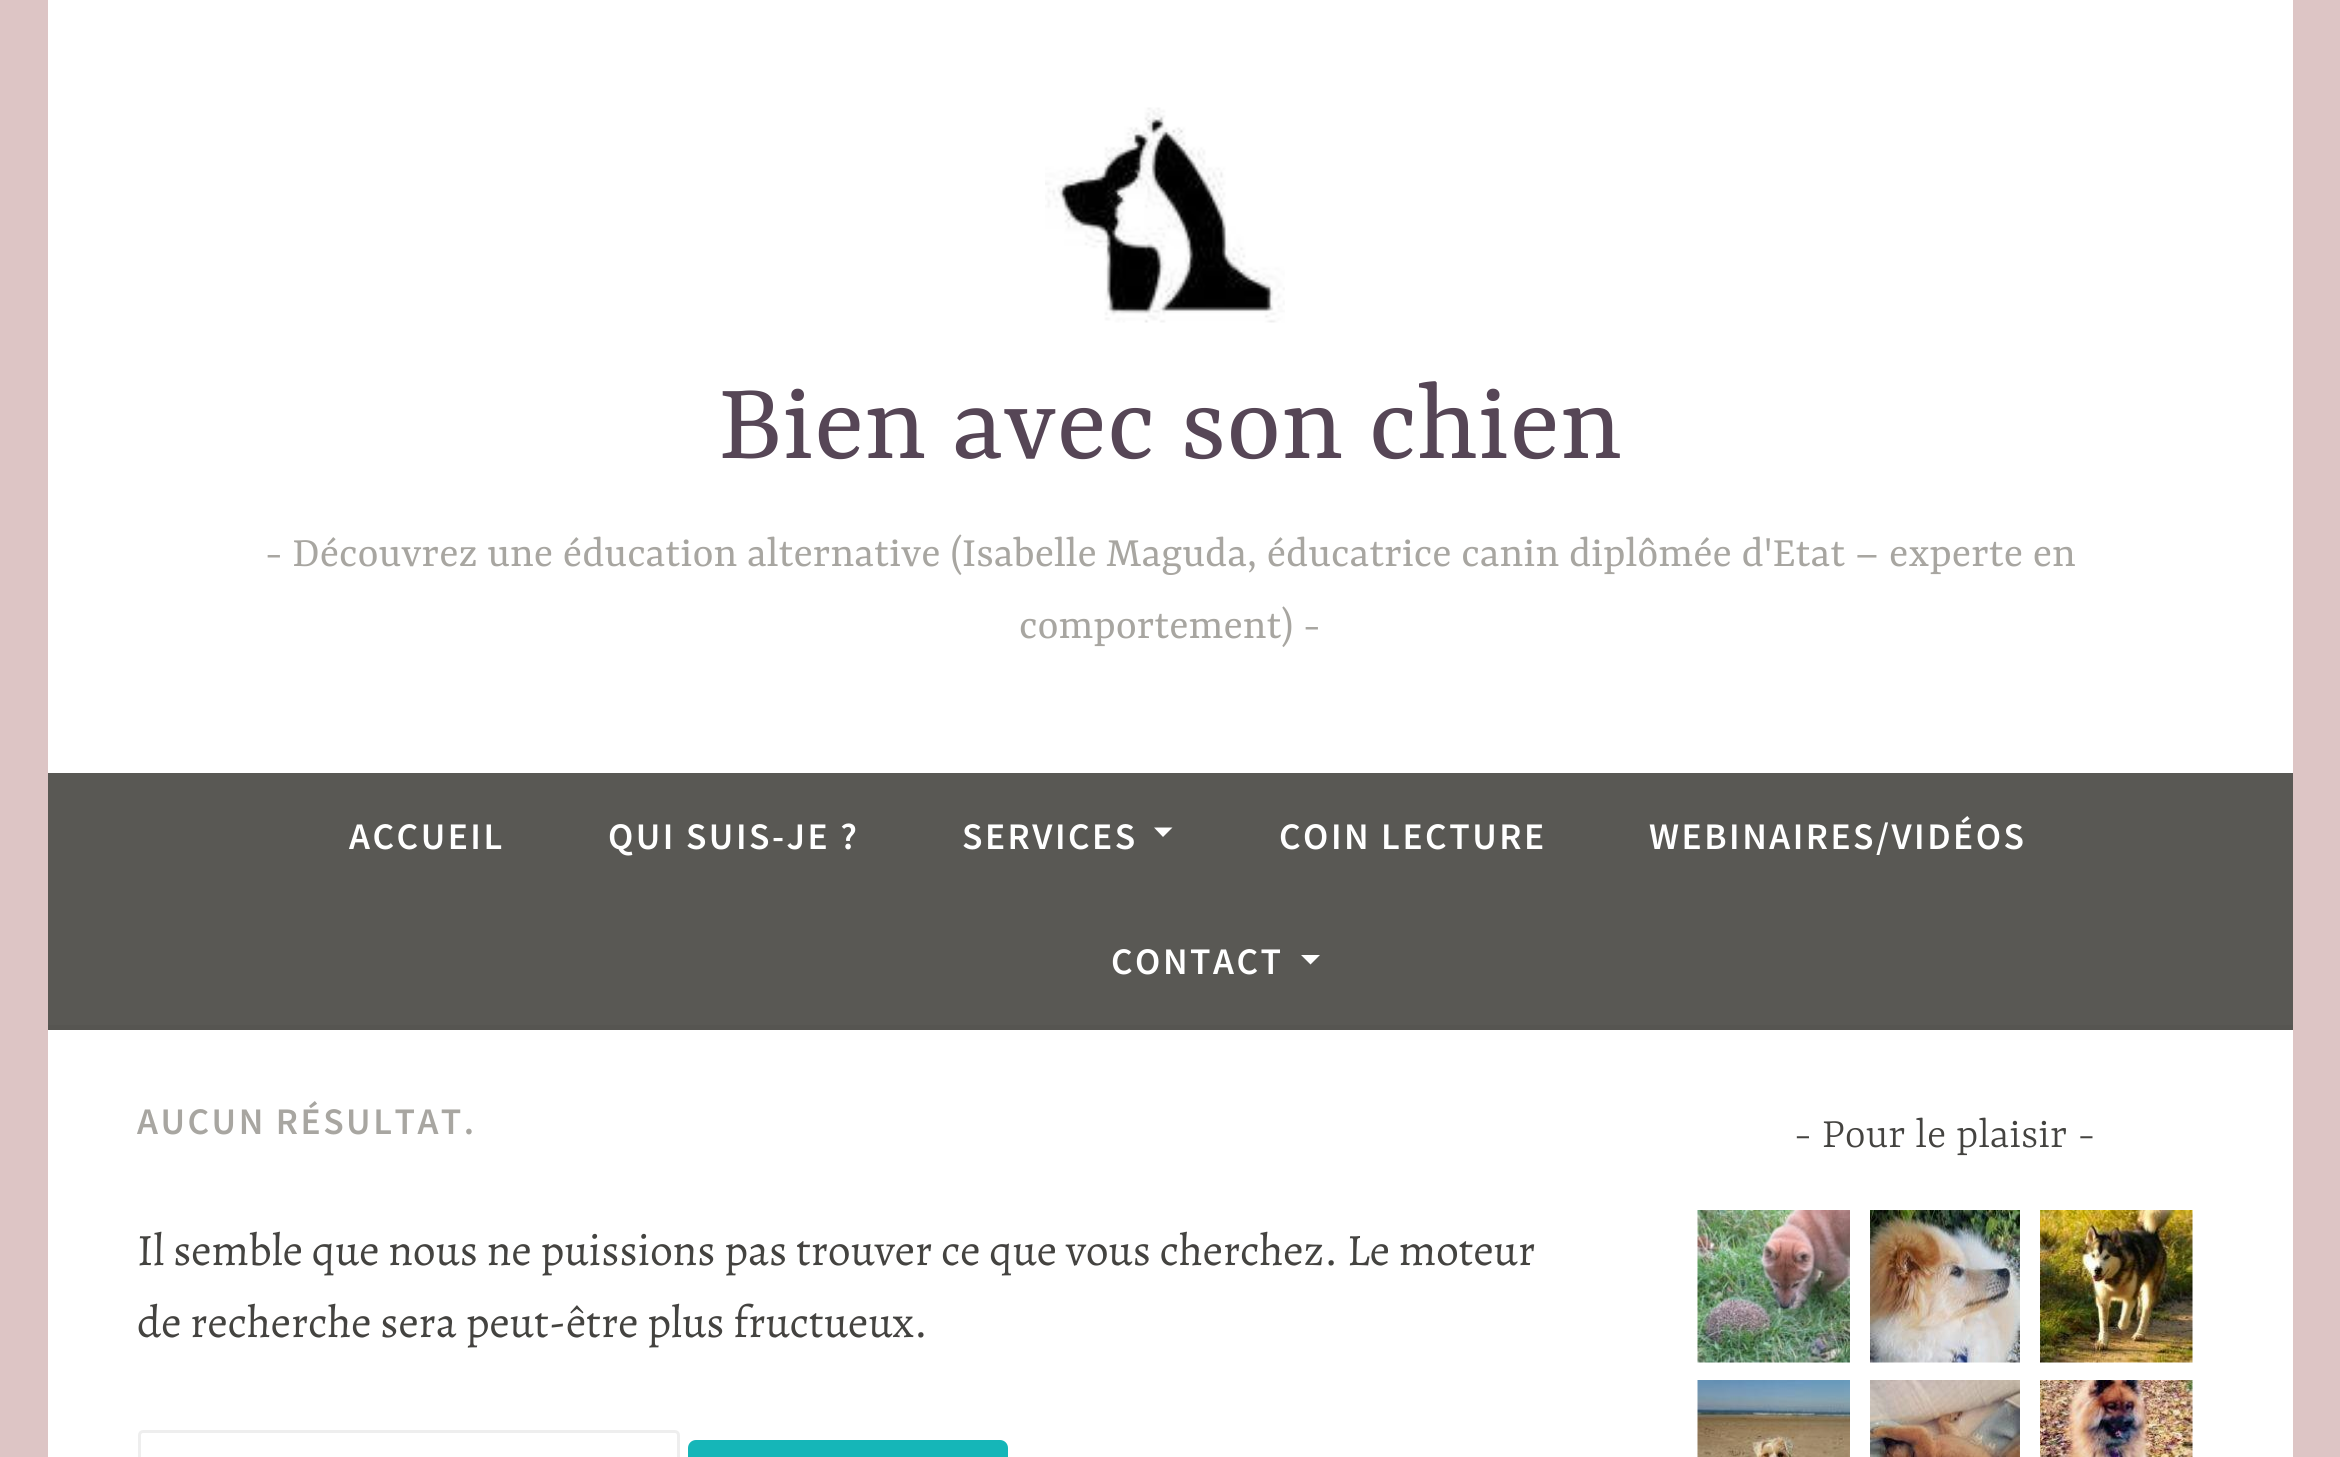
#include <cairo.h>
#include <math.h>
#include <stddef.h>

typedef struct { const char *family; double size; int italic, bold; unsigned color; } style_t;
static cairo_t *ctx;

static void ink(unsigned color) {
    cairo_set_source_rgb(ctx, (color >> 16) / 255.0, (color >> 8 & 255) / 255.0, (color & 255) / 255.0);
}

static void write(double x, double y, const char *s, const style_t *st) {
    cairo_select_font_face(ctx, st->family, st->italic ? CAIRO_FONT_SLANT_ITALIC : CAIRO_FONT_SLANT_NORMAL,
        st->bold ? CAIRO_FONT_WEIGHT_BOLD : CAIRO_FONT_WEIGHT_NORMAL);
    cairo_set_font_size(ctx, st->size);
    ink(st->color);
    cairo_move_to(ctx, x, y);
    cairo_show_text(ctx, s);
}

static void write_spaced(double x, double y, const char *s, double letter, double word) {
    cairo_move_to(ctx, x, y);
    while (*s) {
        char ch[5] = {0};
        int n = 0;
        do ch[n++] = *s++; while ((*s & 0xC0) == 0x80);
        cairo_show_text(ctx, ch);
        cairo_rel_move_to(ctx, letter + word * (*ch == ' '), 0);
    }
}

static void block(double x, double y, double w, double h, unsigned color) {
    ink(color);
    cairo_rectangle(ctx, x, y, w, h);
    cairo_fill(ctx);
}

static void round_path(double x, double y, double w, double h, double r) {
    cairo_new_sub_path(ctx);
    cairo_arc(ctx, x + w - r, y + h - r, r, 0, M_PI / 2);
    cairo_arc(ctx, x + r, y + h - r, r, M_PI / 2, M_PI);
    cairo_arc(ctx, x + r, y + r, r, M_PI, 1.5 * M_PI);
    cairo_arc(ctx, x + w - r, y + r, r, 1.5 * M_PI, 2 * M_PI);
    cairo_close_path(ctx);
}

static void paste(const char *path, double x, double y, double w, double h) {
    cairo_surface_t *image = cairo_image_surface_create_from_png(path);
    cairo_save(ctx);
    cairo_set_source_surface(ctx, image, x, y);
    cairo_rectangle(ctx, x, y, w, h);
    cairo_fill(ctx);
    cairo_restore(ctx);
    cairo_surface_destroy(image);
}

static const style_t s1 = {"Yrsa", 117.5, 0, 0, 0x564656};
static const style_t s2 = {"Yrsa", 45, 0, 0, 0xa8a6a1};
static const style_t s3 = {"Alegreya", 45, 0, 0, 0x444340};
static const style_t s4 = {"Yrsa Light", 45, 0, 0, 0x444340};

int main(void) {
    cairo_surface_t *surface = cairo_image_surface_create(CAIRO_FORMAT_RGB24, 2340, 1457);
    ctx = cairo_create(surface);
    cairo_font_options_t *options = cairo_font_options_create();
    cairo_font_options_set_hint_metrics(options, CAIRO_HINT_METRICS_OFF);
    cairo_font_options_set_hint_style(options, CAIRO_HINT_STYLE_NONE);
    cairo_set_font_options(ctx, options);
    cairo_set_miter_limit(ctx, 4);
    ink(0xddc5c5);
    cairo_paint(ctx);
    block(48, 0, 2245, 773, 0xffffff);
    paste("pic1.png", 1045, 107, 240, 216);
    write(718, 458, "Bien avec son chien", &s1);
    write(265, 566, "- Découvrez une éducation alternative (Isabelle Maguda, éducatrice canin diplômée d'Etat – experte en", &s2);
    write(1019, 638, "comportement) -", &s2);
    block(48, 773, 2245, 252, 0x595854);
    block(48, 1025, 2245, 5, 0x565551);
    cairo_select_font_face(ctx, "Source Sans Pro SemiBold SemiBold", CAIRO_FONT_SLANT_NORMAL, CAIRO_FONT_WEIGHT_NORMAL);
    cairo_set_font_size(ctx, 37.5);
    ink(0xffffff);
    write_spaced(349, 849, "ACCUEIL", 2.5, 0);
    write_spaced(608, 849, "QUI SUIS-JE ?", 2.5, 0);
    write_spaced(962, 849, "SERVICES", 2.5, 0);
    cairo_new_path(ctx);
    cairo_move_to(ctx, 1154, 827.5);
    cairo_line_to(ctx, 1172.5, 827.5);
    cairo_line_to(ctx, 1163, 837);
    cairo_close_path(ctx);
    cairo_fill(ctx);
    write_spaced(1279, 849, "COIN LECTURE", 2.5, 0);
    write_spaced(1649, 849, "WEBINAIRES/VIDÉOS", 2.5, 0);
    write_spaced(1111, 974, "CONTACT", 2.5, 0);
    cairo_new_path(ctx);
    cairo_move_to(ctx, 1301, 955);
    cairo_line_to(ctx, 1320, 955);
    cairo_line_to(ctx, 1310.5, 964.5);
    cairo_close_path(ctx);
    cairo_fill(ctx);
    block(48, 1030, 2245, 427, 0xffffff);
    ink(0xa8a6a1);
    write_spaced(137, 1134, "AUCUN RÉSULTAT.", 2.5, 0);
    write(137, 1265, "Il semble que nous ne puissions pas trouver ce que vous cherchez. Le moteur", &s3);
    write(137, 1337, "de recherche sera peut-être plus fructueux.", &s3);
    round_path(139.5, 1431.5, 539, 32, 3.5);
    ink(0xeeeeee);
    cairo_set_line_width(ctx, 3);
    cairo_stroke(ctx);
    ink(0x15b6b8);
    round_path(688, 1440, 320, 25, 8);
    cairo_fill(ctx);
    write(1794, 1147, "- Pour le plaisir -", &s4);
    paste("pic2.png", 1697, 1210, 153, 153);
    paste("pic3.png", 1870, 1210, 150, 153);
    paste("pic4.png", 2040, 1210, 153, 153);
    paste("pic5.png", 1697, 1380, 153, 77);
    paste("pic6.png", 1870, 1380, 150, 77);
    paste("pic7.png", 2040, 1380, 153, 77);
    cairo_surface_write_to_png(surface, "screenshot.png");
    cairo_font_options_destroy(options);
    cairo_destroy(ctx);
    cairo_surface_destroy(surface);
    return 0;
}
